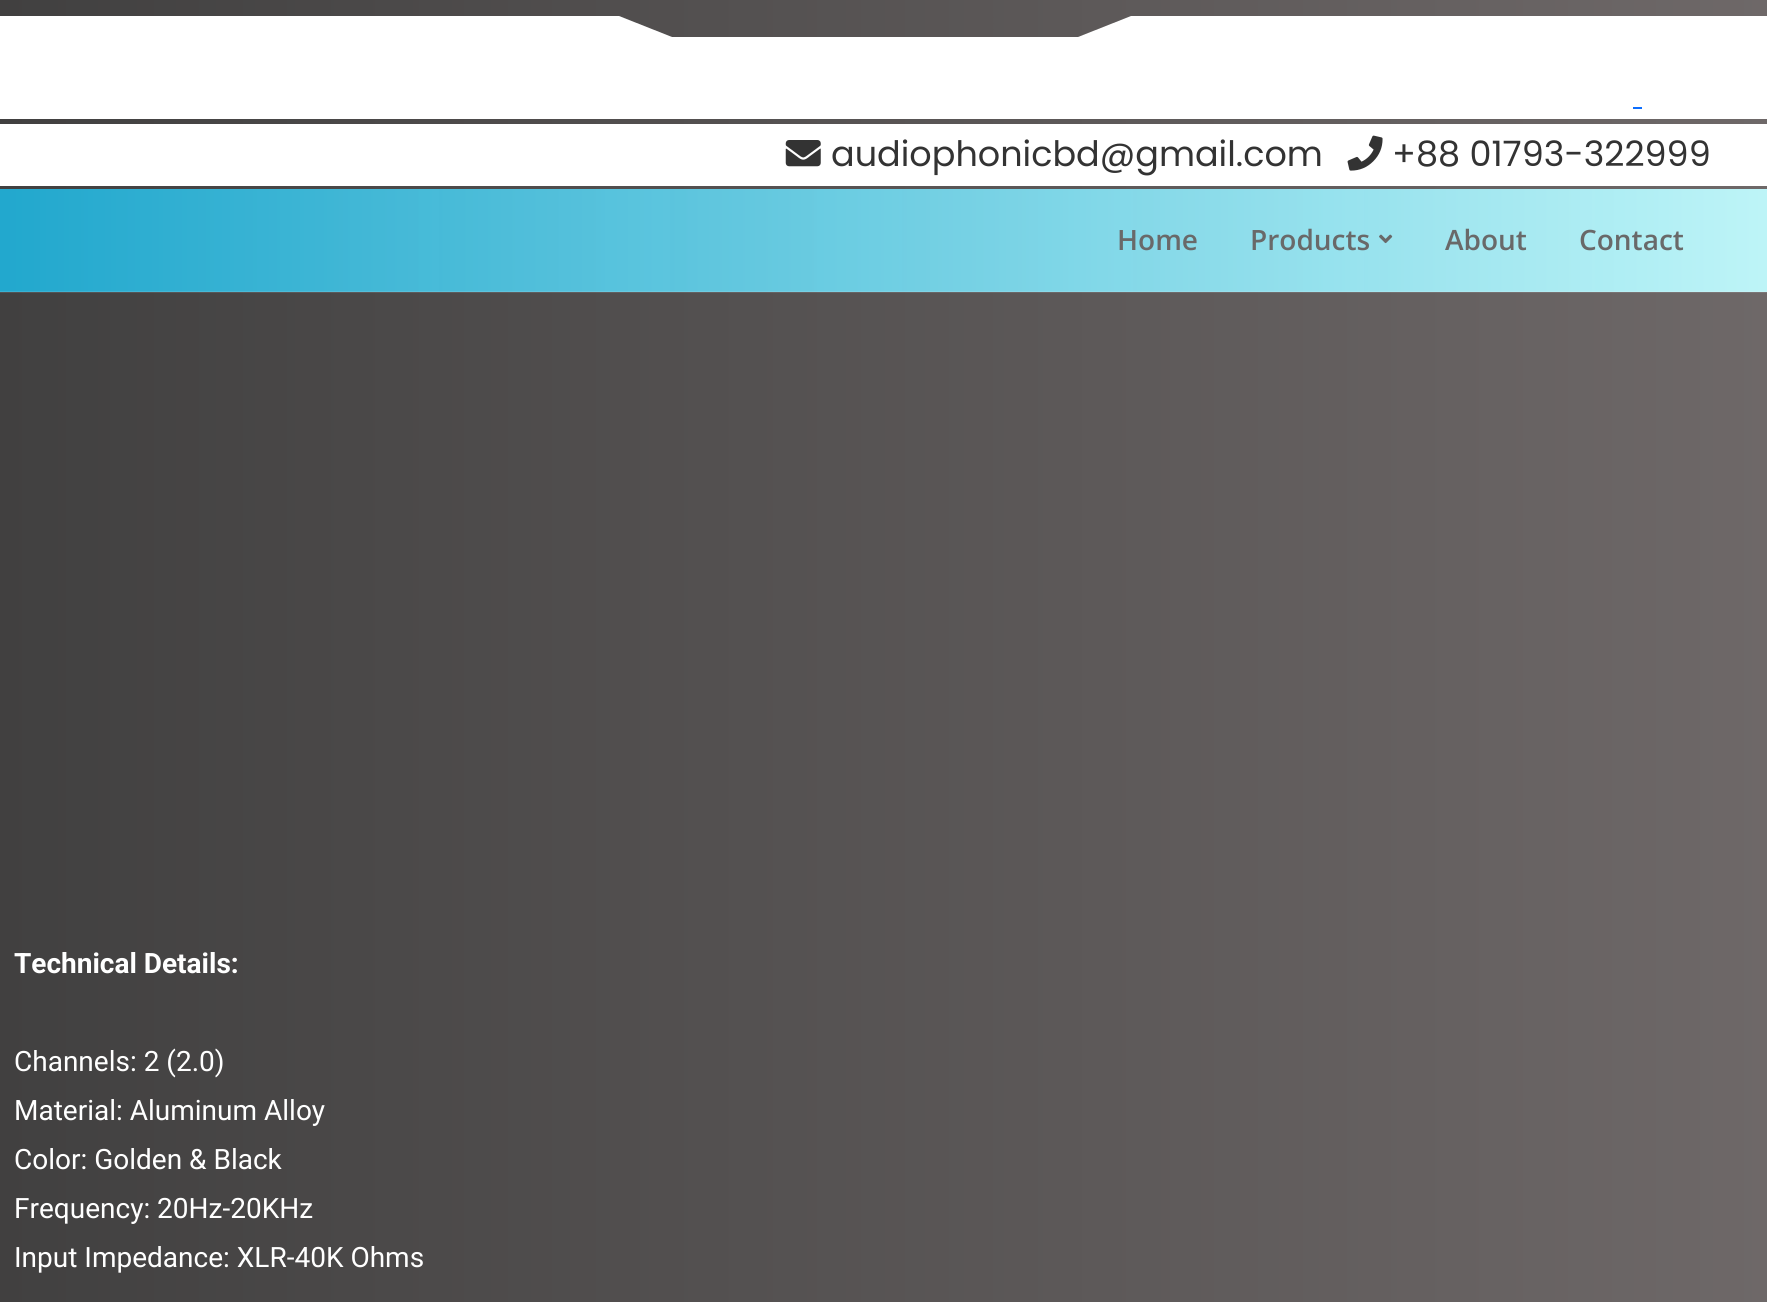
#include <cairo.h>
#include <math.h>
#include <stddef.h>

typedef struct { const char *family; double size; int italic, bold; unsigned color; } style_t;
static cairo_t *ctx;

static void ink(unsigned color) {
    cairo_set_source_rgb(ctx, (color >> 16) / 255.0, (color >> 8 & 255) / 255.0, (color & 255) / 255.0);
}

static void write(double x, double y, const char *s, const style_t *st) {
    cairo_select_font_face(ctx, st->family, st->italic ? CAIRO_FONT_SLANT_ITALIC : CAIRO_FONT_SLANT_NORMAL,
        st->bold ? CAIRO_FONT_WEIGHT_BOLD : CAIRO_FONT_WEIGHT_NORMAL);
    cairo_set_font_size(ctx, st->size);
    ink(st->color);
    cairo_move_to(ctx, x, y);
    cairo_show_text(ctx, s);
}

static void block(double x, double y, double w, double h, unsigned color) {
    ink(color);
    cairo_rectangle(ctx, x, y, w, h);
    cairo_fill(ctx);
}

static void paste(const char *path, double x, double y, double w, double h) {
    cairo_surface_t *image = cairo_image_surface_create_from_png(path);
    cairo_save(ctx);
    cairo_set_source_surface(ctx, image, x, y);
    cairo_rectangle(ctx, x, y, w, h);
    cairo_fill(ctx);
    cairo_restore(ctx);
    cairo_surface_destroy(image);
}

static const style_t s1 = {"Poppins", 35, 0, 0, 0x333333};
static const style_t s2 = {"Open Sans SemiBold", 28, 0, 0, 0x696969};
static const style_t s3 = {"Roboto", 28, 0, 1, 0xffffff};
static const style_t s4 = {"Roboto", 28, 0, 0, 0xffffff};

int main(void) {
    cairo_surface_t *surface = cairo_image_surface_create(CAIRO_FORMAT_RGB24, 1767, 1302);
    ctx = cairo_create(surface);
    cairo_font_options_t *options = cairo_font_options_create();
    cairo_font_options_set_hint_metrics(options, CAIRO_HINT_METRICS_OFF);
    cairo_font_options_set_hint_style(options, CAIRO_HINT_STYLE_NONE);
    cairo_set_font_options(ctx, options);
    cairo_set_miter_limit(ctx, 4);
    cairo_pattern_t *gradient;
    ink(0xffffff);
    cairo_paint(ctx);
    gradient = cairo_pattern_create_linear(0, 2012, 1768, 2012);
    cairo_pattern_add_color_stop_rgba(gradient, 0, 0.271, 0.271, 0.271, 1);
    cairo_pattern_add_color_stop_rgba(gradient, 0, 0.255, 0.251, 0.251, 1);
    cairo_pattern_add_color_stop_rgba(gradient, 1, 0.431, 0.408, 0.408, 1);
    cairo_set_source(ctx, gradient);
    cairo_pattern_destroy(gradient);
    cairo_rectangle(ctx, 0, 119, 1767, 1183);
    cairo_fill(ctx);
    gradient = cairo_pattern_create_linear(0, 44, 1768, 44);
    cairo_pattern_add_color_stop_rgba(gradient, 0, 0.271, 0.271, 0.271, 1);
    cairo_pattern_add_color_stop_rgba(gradient, 0, 0.255, 0.251, 0.251, 1);
    cairo_pattern_add_color_stop_rgba(gradient, 1, 0.431, 0.408, 0.408, 1);
    cairo_set_source(ctx, gradient);
    cairo_pattern_destroy(gradient);
    cairo_new_path(ctx);
    cairo_move_to(ctx, 0, 0);
    cairo_line_to(ctx, 0, 16);
    cairo_line_to(ctx, 619, 16);
    cairo_line_to(ctx, 672, 37);
    cairo_line_to(ctx, 1078, 37);
    cairo_line_to(ctx, 1131, 16);
    cairo_line_to(ctx, 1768, 16);
    cairo_line_to(ctx, 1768, 0);
    cairo_close_path(ctx);
    cairo_fill(ctx);
    block(1633, 107, 9, 2, 0x0d6efd);
    block(0, 124, 1767, 62, 0xffffff);
    paste("pic1.png", 785, 140, 36, 27);
    write(831, 166, "audiophonicbd@gmail.com", &s1);
    paste("pic2.png", 1347, 135, 36, 36);
    write(1392, 166, "+88 01793-322999", &s1);
    gradient = cairo_pattern_create_linear(0, 240, 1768, 240);
    cairo_pattern_add_color_stop_rgba(gradient, 0, 0.008, 0, 0.141, 1);
    cairo_pattern_add_color_stop_rgba(gradient, 0, 0.122, 0.694, 0.855, 0.92);
    cairo_pattern_add_color_stop_rgba(gradient, 1, 0.757, 0.988, 1, 0.95);
    cairo_set_source(ctx, gradient);
    cairo_pattern_destroy(gradient);
    cairo_rectangle(ctx, 0, 189, 1767, 103);
    cairo_fill(ctx);
    cairo_set_source_rgba(ctx, 1, 1, 1, 0.1);
    cairo_rectangle(ctx, 0, 291, 1767, 2);
    cairo_fill(ctx);
    write(1117, 250, "Home", &s2);
    write(1250, 250, "Products", &s2);
    paste("pic3.png", 1379, 234, 14, 10);
    write(1445, 250, "About", &s2);
    write(1579, 250, "Contact", &s2);
    write(14, 973, "Technical Details:", &s3);
    write(14, 1071, "Channels: 2 (2.0)", &s4);
    write(14, 1120, "Material: Aluminum Alloy", &s4);
    write(14, 1169, "Color: Golden & Black", &s4);
    write(14, 1218, "Frequency: 20Hz-20KHz", &s4);
    write(14, 1267, "Input Impedance: XLR-40K Ohms", &s4);
    cairo_surface_write_to_png(surface, "screenshot.png");
    cairo_font_options_destroy(options);
    cairo_destroy(ctx);
    cairo_surface_destroy(surface);
    return 0;
}
